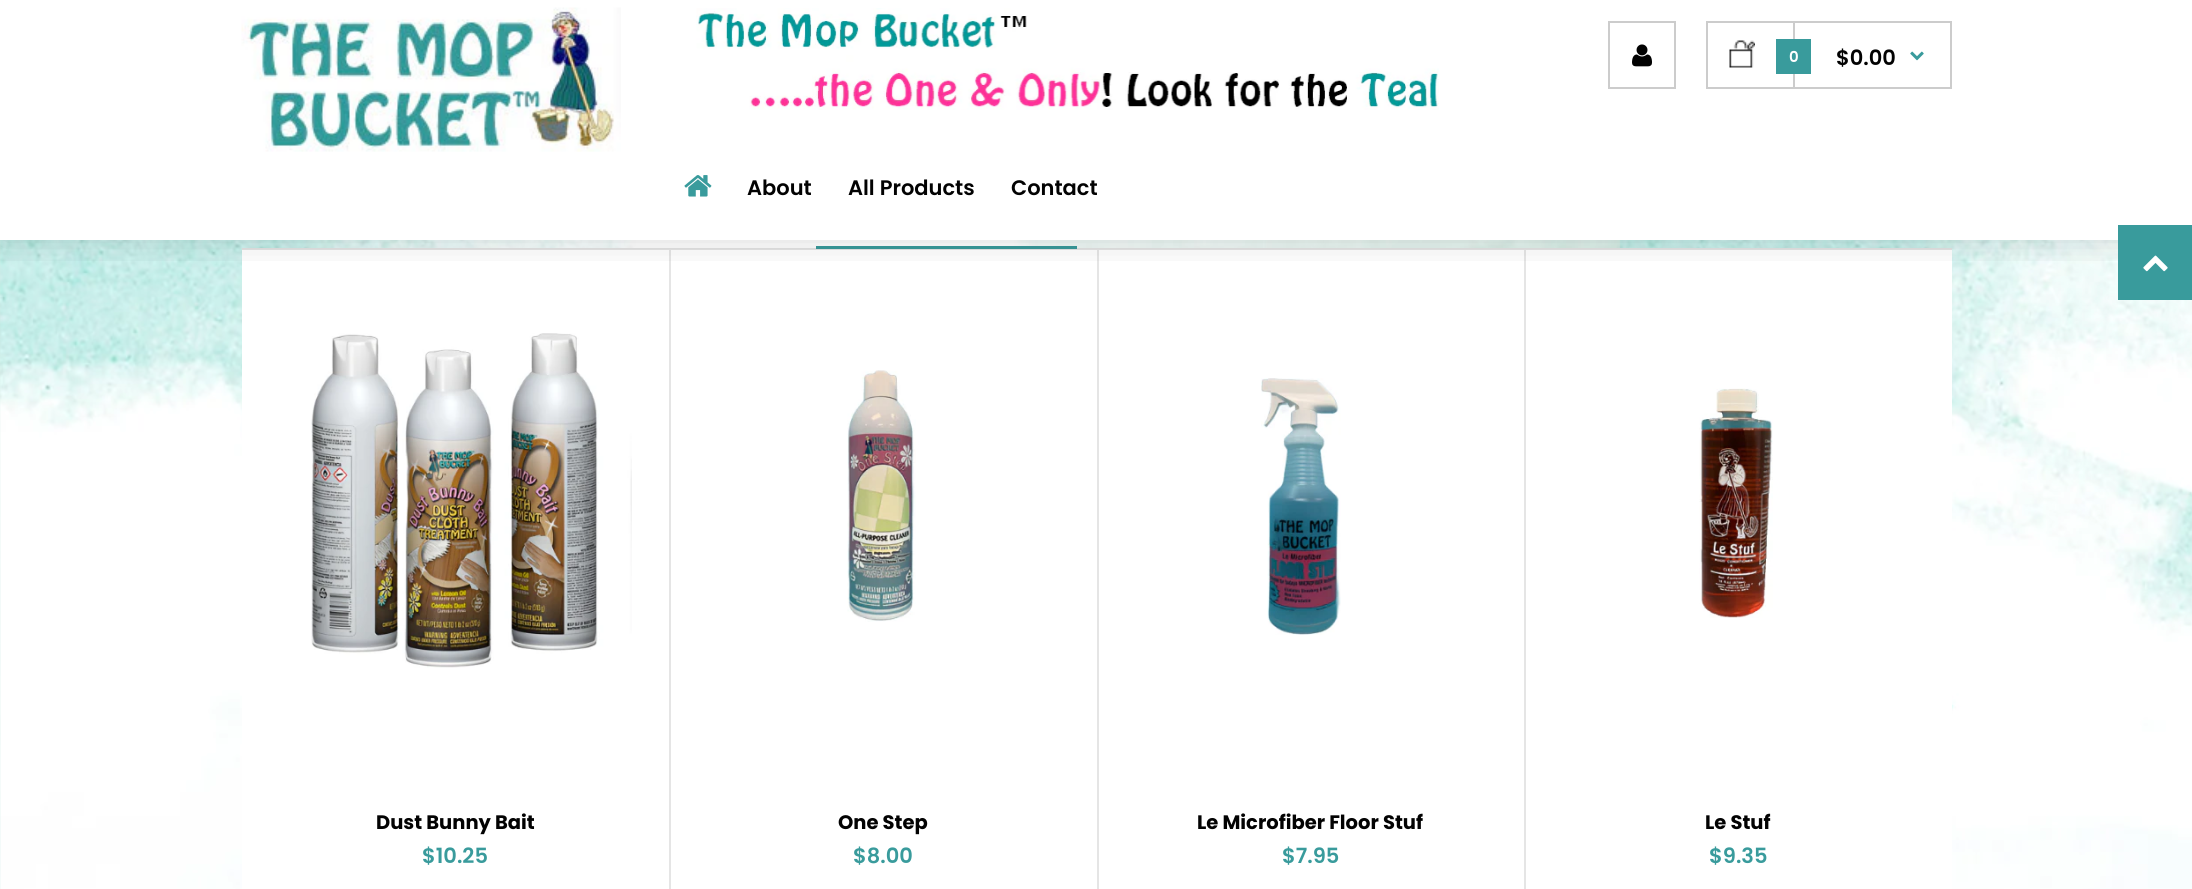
#include <cairo.h>
#include <math.h>
#include <stddef.h>

typedef struct { const char *family; double size; int italic, bold; unsigned color; } style_t;
static cairo_t *ctx;

static void ink(unsigned color) {
    cairo_set_source_rgb(ctx, (color >> 16) / 255.0, (color >> 8 & 255) / 255.0, (color & 255) / 255.0);
}

static void write(double x, double y, const char *s, const style_t *st) {
    cairo_select_font_face(ctx, st->family, st->italic ? CAIRO_FONT_SLANT_ITALIC : CAIRO_FONT_SLANT_NORMAL,
        st->bold ? CAIRO_FONT_WEIGHT_BOLD : CAIRO_FONT_WEIGHT_NORMAL);
    cairo_set_font_size(ctx, st->size);
    ink(st->color);
    cairo_move_to(ctx, x, y);
    cairo_show_text(ctx, s);
}

static void block(double x, double y, double w, double h, unsigned color) {
    ink(color);
    cairo_rectangle(ctx, x, y, w, h);
    cairo_fill(ctx);
}

static void round_path(double x, double y, double w, double h, double r) {
    cairo_new_sub_path(ctx);
    cairo_arc(ctx, x + w - r, y + h - r, r, 0, M_PI / 2);
    cairo_arc(ctx, x + r, y + h - r, r, M_PI / 2, M_PI);
    cairo_arc(ctx, x + r, y + r, r, M_PI, 1.5 * M_PI);
    cairo_arc(ctx, x + w - r, y + r, r, 1.5 * M_PI, 2 * M_PI);
    cairo_close_path(ctx);
}

static void blur_box(double x, double y, double w, double h, double r, double blur, double alpha) {
    cairo_push_group_with_content(ctx, CAIRO_CONTENT_ALPHA);
    cairo_set_operator(ctx, CAIRO_OPERATOR_SOURCE);
    for (int i = 15; i >= -15 && fmin(w, h) + blur * i / 3 > 0; i -= 2) {
        double e = blur * i / 6;
        cairo_set_source_rgba(ctx, 0, 0, 0, alpha * erfc((i - 1) / 8.5) / 2);
        round_path(x - e, y - e, w + 2 * e, h + 2 * e, fmax(0, fmin(r + e + blur * .6, fmin(w, h) / 2 + e)));
        cairo_fill(ctx);
    }
    cairo_pattern_t *soft = cairo_pop_group(ctx);
    cairo_mask(ctx, soft);
    cairo_pattern_destroy(soft);
}

static void paste(const char *path, double x, double y, double w, double h) {
    cairo_surface_t *image = cairo_image_surface_create_from_png(path);
    cairo_save(ctx);
    cairo_set_source_surface(ctx, image, x, y);
    cairo_rectangle(ctx, x, y, w, h);
    cairo_fill(ctx);
    cairo_restore(ctx);
    cairo_surface_destroy(image);
}

static const style_t s1 = {"Poppins SemiBold", 15, 0, 0, 0xffffff};
static const style_t s2 = {"Poppins SemiBold", 21, 0, 0, 0x020202};
static const style_t s3 = {"Poppins", 19.5, 0, 1, 0x020202};
static const style_t s4 = {"Poppins SemiBold", 21, 0, 0, 0x399b9c};

int main(void) {
    cairo_surface_t *surface = cairo_image_surface_create(CAIRO_FORMAT_RGB24, 2192, 889);
    ctx = cairo_create(surface);
    cairo_font_options_t *options = cairo_font_options_create();
    cairo_font_options_set_hint_metrics(options, CAIRO_HINT_METRICS_OFF);
    cairo_font_options_set_hint_style(options, CAIRO_HINT_STYLE_NONE);
    cairo_set_font_options(ctx, options);
    cairo_set_miter_limit(ctx, 4);
    ink(0xffffff);
    cairo_paint(ctx);
    paste("pic1.png", 0, 240, 2192, 649);
    block(242, 248, 1710, 2, 0xe5e5e5);
    block(816, 246, 261, 3, 0x399b9c);
    block(242, 250, 1710, 639, 0xffffff);
    block(669, 249, 2, 640, 0xe5e5e5);
    block(1097, 249, 2, 640, 0xe5e5e5);
    block(1524, 249, 2, 640, 0xe5e5e5);
    cairo_save(ctx);
    cairo_rectangle(ctx, 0, 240, 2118, 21);
    cairo_clip(ctx);
    ink(0x000000);
    blur_box(0, -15, 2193, 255, 0, 19, 0.15);
    cairo_restore(ctx);
    paste("pic2.png", 241, 7, 380, 145);
    cairo_rectangle(ctx, 1609, 22, 66, 66);
    ink(0xcccccc);
    cairo_stroke(ctx);
    paste("pic3.png", 1632, 44, 20, 23);
    cairo_rectangle(ctx, 1707, 22, 244, 66);
    cairo_stroke(ctx);
    paste("pic4.png", 1729, 40, 26, 28);
    block(1793, 23, 2, 64, 0xcccccc);
    block(1776, 39, 35, 35, 0x399b9c);
    write(1789, 62, "0", &s1);
    write(1836, 65, "$0.00", &s2);
    paste("pic5.png", 1910, 51, 14, 10);
    paste("pic6.png", 696, 8, 743, 102);
    paste("pic7.png", 684, 175, 28, 22);
    write(747, 195, "About", &s2);
    write(848, 195, "All Products", &s2);
    write(1011, 195, "Contact", &s2);
    paste("pic8.png", 311, 333, 321, 335);
    write(376, 829, "Dust Bunny Bait", &s3);
    write(422, 863, "$10.25", &s4);
    paste("pic9.png", 847, 370, 69, 252);
    write(838, 829, "One Step", &s3);
    write(853, 863, "$8.00", &s4);
    paste("pic10.png", 1261, 378, 80, 257);
    write(1197, 829, "Le Microfiber Floor Stuf", &s3);
    write(1282, 863, "$7.95", &s4);
    paste("pic11.png", 1699, 388, 74, 230);
    write(1705, 829, "Le Stuf", &s3);
    write(1709, 863, "$9.35", &s4);
    block(2118, 225, 74, 75, 0x399b9c);
    paste("pic12.png", 2143, 255, 25, 17);
    cairo_surface_write_to_png(surface, "screenshot.png");
    cairo_font_options_destroy(options);
    cairo_destroy(ctx);
    cairo_surface_destroy(surface);
    return 0;
}
